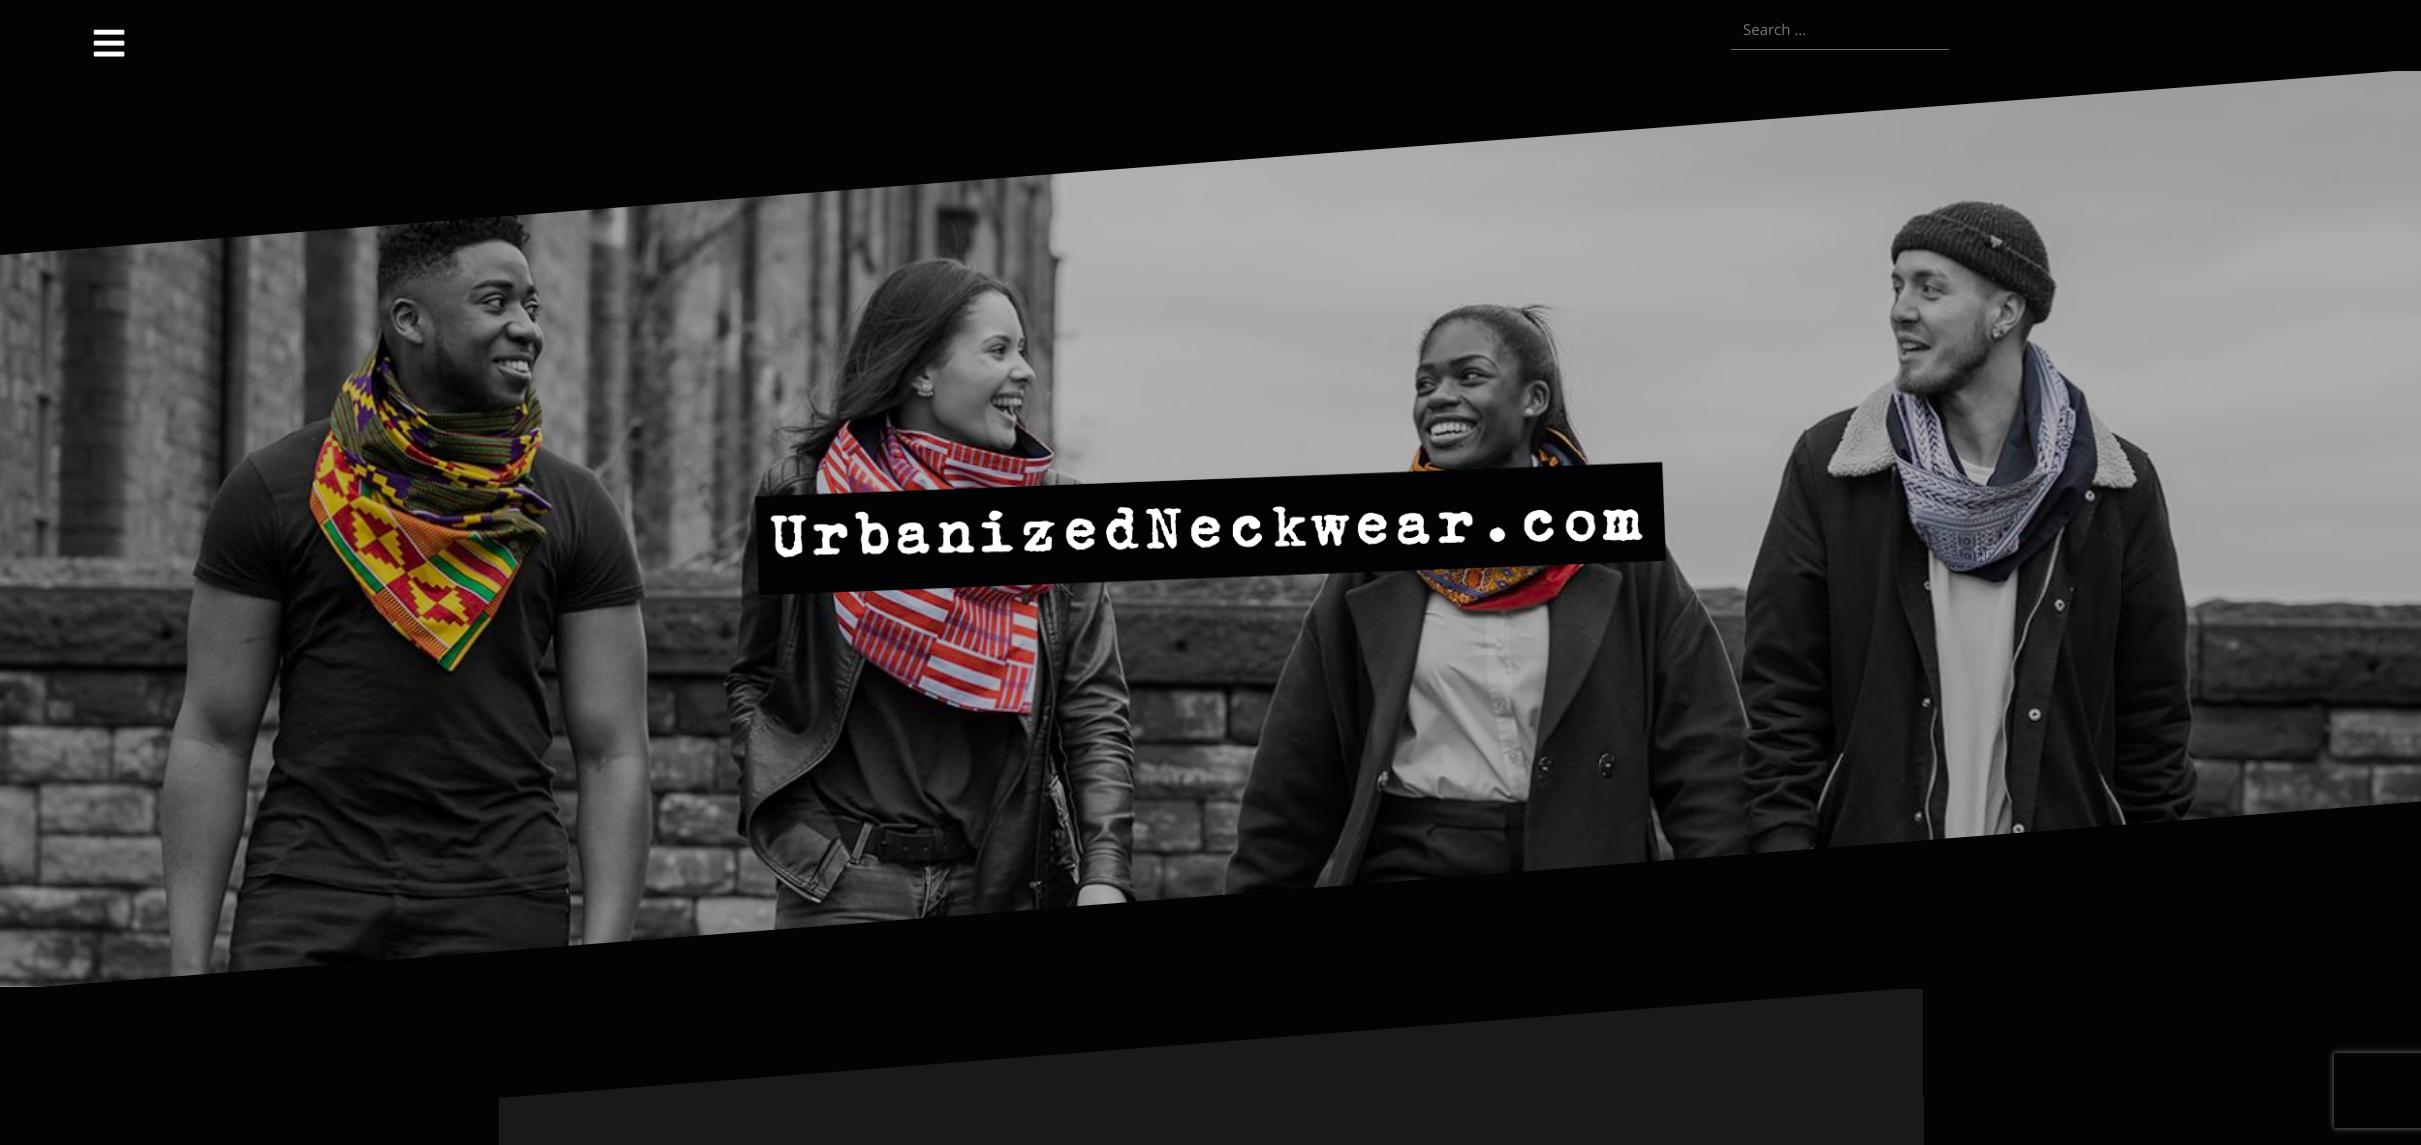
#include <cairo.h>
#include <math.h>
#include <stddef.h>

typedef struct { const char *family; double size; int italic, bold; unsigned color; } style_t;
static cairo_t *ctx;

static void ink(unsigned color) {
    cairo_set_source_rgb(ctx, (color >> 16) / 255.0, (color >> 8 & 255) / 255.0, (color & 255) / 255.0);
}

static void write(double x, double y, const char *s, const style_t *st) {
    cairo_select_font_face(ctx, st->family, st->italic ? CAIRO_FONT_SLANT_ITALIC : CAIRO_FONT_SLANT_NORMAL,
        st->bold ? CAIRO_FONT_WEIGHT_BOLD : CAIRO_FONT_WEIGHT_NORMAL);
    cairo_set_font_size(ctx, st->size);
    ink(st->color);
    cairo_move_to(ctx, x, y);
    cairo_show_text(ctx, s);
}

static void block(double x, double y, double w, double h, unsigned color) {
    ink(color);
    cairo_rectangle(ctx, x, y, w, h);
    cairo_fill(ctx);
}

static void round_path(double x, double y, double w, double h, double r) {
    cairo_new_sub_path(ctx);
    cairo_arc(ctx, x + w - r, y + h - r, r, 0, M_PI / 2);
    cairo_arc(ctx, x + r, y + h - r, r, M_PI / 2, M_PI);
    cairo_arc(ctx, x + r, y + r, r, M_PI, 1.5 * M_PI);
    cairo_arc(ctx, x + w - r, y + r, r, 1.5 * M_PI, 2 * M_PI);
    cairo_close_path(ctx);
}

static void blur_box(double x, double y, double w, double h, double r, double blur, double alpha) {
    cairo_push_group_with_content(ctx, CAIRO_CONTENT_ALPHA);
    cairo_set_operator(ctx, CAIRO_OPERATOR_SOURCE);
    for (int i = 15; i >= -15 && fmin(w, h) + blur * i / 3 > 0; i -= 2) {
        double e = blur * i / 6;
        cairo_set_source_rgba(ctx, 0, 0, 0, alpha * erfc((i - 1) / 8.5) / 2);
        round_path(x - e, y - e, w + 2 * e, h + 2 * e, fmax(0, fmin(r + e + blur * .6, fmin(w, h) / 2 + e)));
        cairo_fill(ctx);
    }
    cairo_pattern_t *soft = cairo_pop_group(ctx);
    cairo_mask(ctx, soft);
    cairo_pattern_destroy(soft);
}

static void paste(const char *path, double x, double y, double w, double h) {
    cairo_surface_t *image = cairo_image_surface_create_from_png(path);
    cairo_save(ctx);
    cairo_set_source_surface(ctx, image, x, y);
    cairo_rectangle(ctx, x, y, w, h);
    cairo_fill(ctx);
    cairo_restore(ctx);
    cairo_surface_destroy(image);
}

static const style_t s1 = {"Open Sans", 15, 0, 0, 0x757575};

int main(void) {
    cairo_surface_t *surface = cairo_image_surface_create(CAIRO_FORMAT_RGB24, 2421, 1145);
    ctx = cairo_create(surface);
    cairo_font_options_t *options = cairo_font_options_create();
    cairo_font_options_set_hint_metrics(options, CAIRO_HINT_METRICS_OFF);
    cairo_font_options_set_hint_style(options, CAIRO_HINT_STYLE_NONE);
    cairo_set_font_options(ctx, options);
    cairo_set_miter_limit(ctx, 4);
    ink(0x030305);
    cairo_paint(ctx);
    paste("pic1.png", 93, 29, 32, 28);
    block(1731, 49, 218, 1, 0x6f6f6f);
    write(1743, 35, "Search …", &s1);
    paste("pic2.png", 0, 71, 2421, 916);
    ink(0x030305);
    cairo_new_path(ctx);
    cairo_move_to(ctx, 0, 255);
    cairo_line_to(ctx, 0, 69);
    cairo_line_to(ctx, 2421, 69);
    cairo_fill(ctx);
    paste("pic3.png", 755, 461, 911, 135);
    cairo_save(ctx);
    cairo_rectangle(ctx, 499, 985, 1424, 114);
    cairo_clip(ctx);
    ink(0x17191b);
    cairo_new_path(ctx);
    cairo_move_to(ctx, 1950, 985);
    cairo_line_to(ctx, 1950, 1098);
    cairo_line_to(ctx, 499, 1098);
    cairo_fill(ctx);
    cairo_restore(ctx);
    cairo_save(ctx);
    cairo_rectangle(ctx, 0, 798, 2421, 191);
    cairo_clip(ctx);
    cairo_new_path(ctx);
    cairo_move_to(ctx, 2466, 798);
    cairo_line_to(ctx, 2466, 990);
    cairo_line_to(ctx, 0, 990);
    cairo_fill(ctx);
    cairo_restore(ctx);
    block(499, 1098, 1425, 47, 0x17191b);
    cairo_save(ctx);
    cairo_set_fill_rule(ctx, CAIRO_FILL_RULE_EVEN_ODD);
    cairo_new_path(ctx);
    cairo_move_to(ctx, 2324, 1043);
    cairo_line_to(ctx, 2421, 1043);
    cairo_line_to(ctx, 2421, 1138);
    cairo_line_to(ctx, 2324, 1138);
    cairo_close_path(ctx);
    cairo_move_to(ctx, 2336.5, 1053);
    cairo_line_to(ctx, 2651.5, 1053);
    cairo_curve_to(ctx, 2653, 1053, 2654, 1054, 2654, 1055.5);
    cairo_line_to(ctx, 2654, 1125.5);
    cairo_curve_to(ctx, 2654, 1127, 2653, 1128, 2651.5, 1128);
    cairo_line_to(ctx, 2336.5, 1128);
    cairo_curve_to(ctx, 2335, 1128, 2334, 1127, 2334, 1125.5);
    cairo_line_to(ctx, 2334, 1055.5);
    cairo_curve_to(ctx, 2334, 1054, 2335, 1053, 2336.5, 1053);
    cairo_close_path(ctx);
    cairo_clip(ctx);
    ink(0x808080);
    blur_box(2334, 1053, 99, 75, 2.5, 3, 1);
    cairo_restore(ctx);
    cairo_surface_write_to_png(surface, "screenshot.png");
    cairo_font_options_destroy(options);
    cairo_destroy(ctx);
    cairo_surface_destroy(surface);
    return 0;
}
